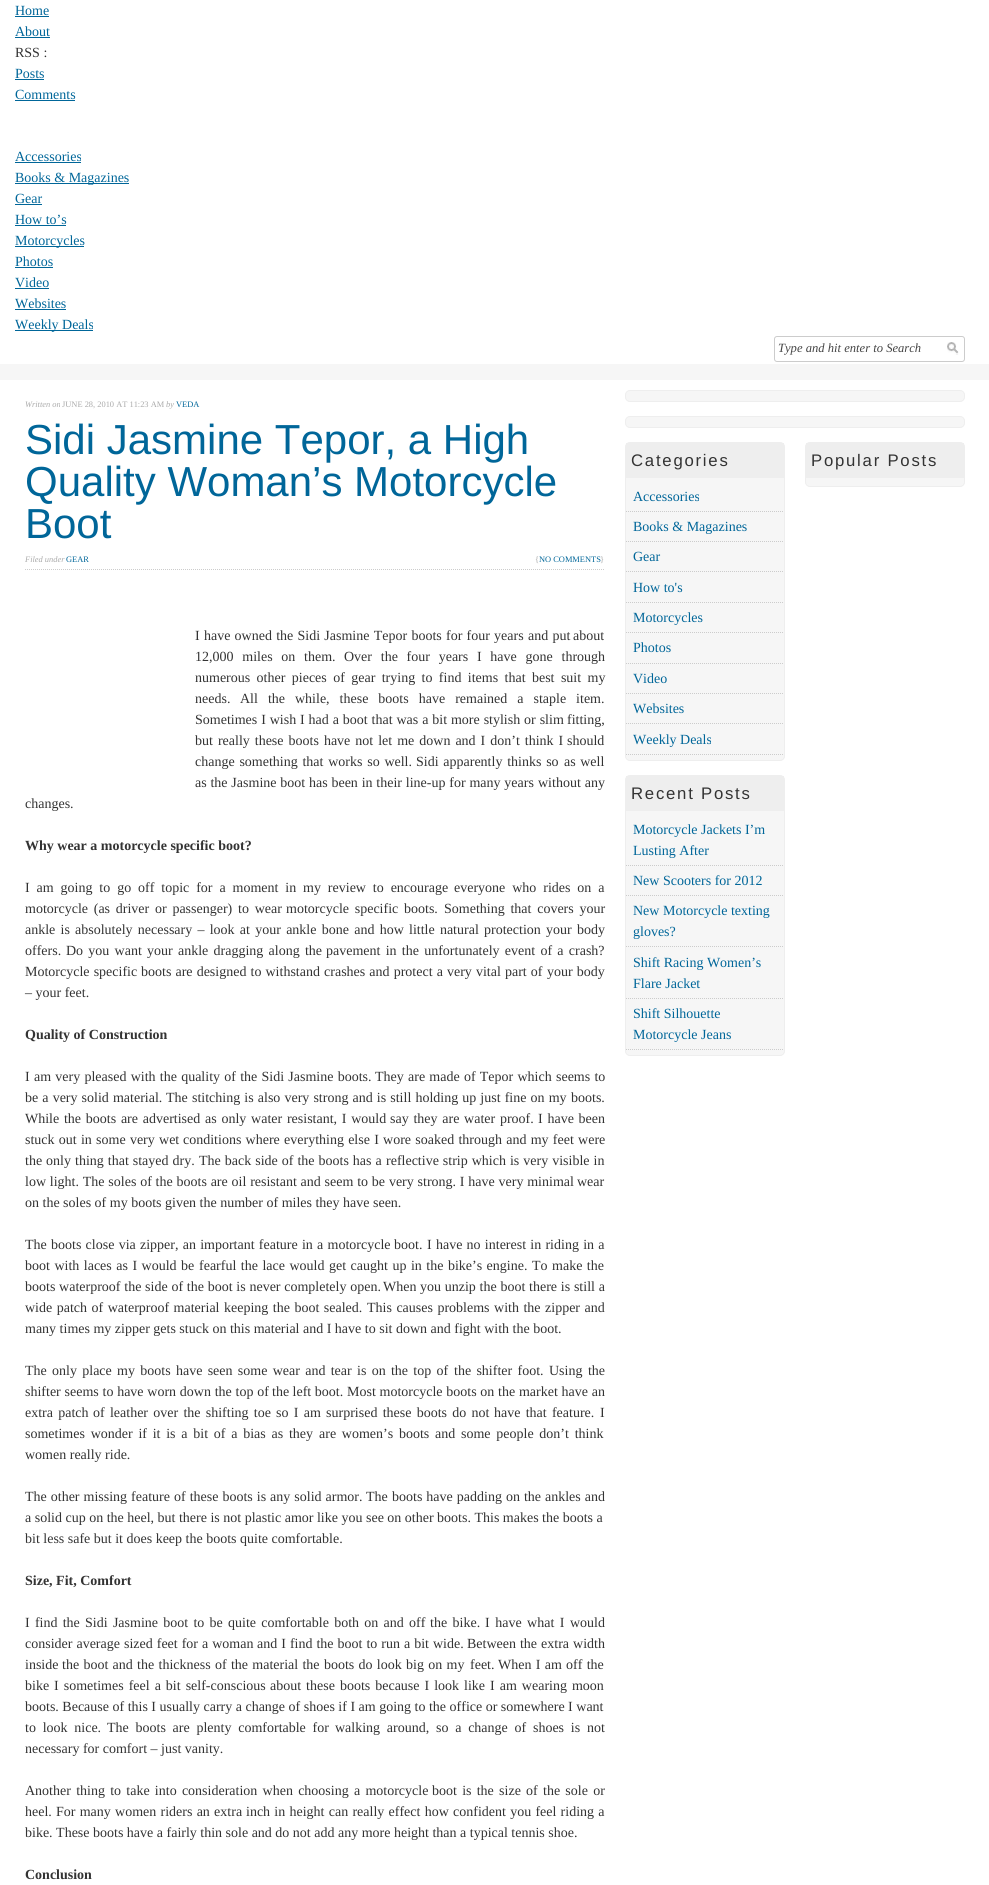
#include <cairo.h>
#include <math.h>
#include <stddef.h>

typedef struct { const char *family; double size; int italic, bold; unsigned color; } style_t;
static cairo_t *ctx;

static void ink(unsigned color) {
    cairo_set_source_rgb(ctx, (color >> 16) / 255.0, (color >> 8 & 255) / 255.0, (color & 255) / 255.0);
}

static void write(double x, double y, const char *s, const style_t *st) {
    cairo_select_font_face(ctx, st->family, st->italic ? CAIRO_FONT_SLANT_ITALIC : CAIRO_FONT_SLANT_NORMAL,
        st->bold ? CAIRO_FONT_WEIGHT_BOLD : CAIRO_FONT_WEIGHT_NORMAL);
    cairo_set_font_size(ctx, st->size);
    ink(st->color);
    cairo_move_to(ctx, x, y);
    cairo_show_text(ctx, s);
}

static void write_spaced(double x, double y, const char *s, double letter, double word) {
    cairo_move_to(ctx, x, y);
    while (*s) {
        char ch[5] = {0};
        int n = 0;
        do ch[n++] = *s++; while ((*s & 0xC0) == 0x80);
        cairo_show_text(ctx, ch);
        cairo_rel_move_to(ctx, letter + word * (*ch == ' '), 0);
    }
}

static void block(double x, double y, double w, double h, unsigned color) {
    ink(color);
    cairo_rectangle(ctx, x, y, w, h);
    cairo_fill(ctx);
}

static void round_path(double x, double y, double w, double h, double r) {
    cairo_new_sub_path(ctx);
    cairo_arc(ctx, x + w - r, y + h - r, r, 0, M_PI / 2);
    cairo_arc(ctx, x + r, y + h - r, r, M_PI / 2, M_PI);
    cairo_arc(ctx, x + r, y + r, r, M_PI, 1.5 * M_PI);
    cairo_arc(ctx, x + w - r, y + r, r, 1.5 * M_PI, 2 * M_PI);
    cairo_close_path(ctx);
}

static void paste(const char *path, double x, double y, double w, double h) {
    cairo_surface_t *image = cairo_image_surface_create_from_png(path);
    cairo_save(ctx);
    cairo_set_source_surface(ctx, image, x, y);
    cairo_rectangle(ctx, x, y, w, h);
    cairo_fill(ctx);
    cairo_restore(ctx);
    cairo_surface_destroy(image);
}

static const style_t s1 = {"Liberation Serif", 14, 0, 0, 0x006699};
static const style_t s2 = {"Liberation Serif", 14, 0, 0, 0x333333};
static const style_t s3 = {"Liberation Serif", 12.6, 1, 0, 0x444444};
static const style_t s4 = {"Liberation Serif", 8.4, 1, 0, 0xaaaaaa};
static const style_t s5 = {"Liberation Serif", 8.4, 0, 0, 0xaaaaaa};
static const style_t s6 = {"Liberation Serif", 8.4, 0, 0, 0x006699};
static const style_t s7 = {"Liberation Sans", 42, 0, 0, 0x006699};
static const style_t s8 = {"Liberation Serif", 14, 0, 1, 0x333333};

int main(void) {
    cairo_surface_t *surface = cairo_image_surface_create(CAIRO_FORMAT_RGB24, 989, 1885);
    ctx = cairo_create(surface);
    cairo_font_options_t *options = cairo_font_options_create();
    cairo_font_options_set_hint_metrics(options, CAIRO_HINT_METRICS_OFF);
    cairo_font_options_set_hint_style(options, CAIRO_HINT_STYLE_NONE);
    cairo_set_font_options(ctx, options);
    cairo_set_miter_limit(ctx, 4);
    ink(0xffffff);
    cairo_paint(ctx);
    write(15, 15, "Home", &s1);
    block(15, 16, 34, 1, 0x006699);
    write(15, 36, "About", &s1);
    block(15, 37, 35, 1, 0x006699);
    write(15, 57, "RSS :", &s2);
    write(15, 78, "Posts", &s1);
    block(15, 79, 29, 1, 0x006699);
    write(15, 99, "Comments", &s1);
    block(15, 100, 60, 1, 0x006699);
    write(15, 161, "Accessories", &s1);
    block(15, 162, 66, 1, 0x006699);
    block(15, 183, 114, 1, 0x006699);
    write(15, 182, "Books & Magazines", &s1);
    write(15, 203, "Gear", &s1);
    block(15, 204, 27, 1, 0x006699);
    write(15, 224, "How to’s", &s1);
    block(15, 225, 51, 1, 0x006699);
    block(15, 246, 69, 1, 0x006699);
    write(15, 245, "Motorcycles", &s1);
    write(15, 266, "Photos", &s1);
    block(15, 267, 38, 1, 0x006699);
    write(15, 287, "Video", &s1);
    block(15, 288, 34, 1, 0x006699);
    write(15, 308, "Websites", &s1);
    block(15, 309, 51, 1, 0x006699);
    block(15, 330, 78, 1, 0x006699);
    write(15, 329, "Weekly Deals", &s1);
    paste("pic1.png", 947, 342, 12, 13);
    round_path(774.5, 336.5, 190, 25, 2.5);
    ink(0xcccccc);
    cairo_set_line_width(ctx, 1);
    cairo_stroke(ctx);
    write(778, 352, "Type and hit enter to Search", &s3);
    block(0, 364, 989, 16, 0xf6f6f6);
    write(25, 407, "Written on", &s4);
    write(62, 407, "JUNE 28, 2010 AT 11:23 AM", &s5);
    write(166, 407, "by", &s4);
    write(176, 407, "VEDA", &s6);
    write(25, 454, "Sidi Jasmine Tepor, a High", &s7);
    write(25, 496, "Quality Woman’s Motorcycle", &s7);
    write(25, 538, "Boot", &s7);
    write(25, 562, "Filed under", &s4);
    write(66, 562, "GEAR", &s6);
    write(535, 562, "{", &s5);
    write(539, 562, "NO COMMENTS", &s6);
    write(600, 562, "}", &s5);
    cairo_new_path(ctx);
    cairo_move_to(ctx, 25, 569.5);
    cairo_line_to(ctx, 605, 569.5);
    ink(0xcccccc);
    cairo_set_dash(ctx, (double[]){1, 1}, 2, 0);
    cairo_stroke(ctx);
    cairo_set_font_size(ctx, 14);
    ink(0x333333);
    write_spaced(195, 640, "I have owned the Sidi Jasmine Tepor boots for four years and put", 0, 0.75);
    write(573, 640, "about", &s2);
    write_spaced(195, 661, "12,000 miles on them.", 0, 5.25);
    write_spaced(344, 661, "Over the four years I have gone through", 0, 5.25);
    write_spaced(195, 682, "numerous other pieces of gear trying to find items that best suit my", 0, 2.9);
    write(195, 703, "needs.", &s2);
    write_spaced(240, 703, "All the while, these boots have remained a staple item.", 0, 6.5);
    write_spaced(195, 724, "Sometimes I wish I had a boot that was a bit more stylish or slim", 0, 0.4);
    write(567, 724, "fitting,", &s2);
    write_spaced(195, 745, "but really these boots have not let me down and I don’t think I", 0, 1.5);
    write(567, 745, "should", &s2);
    write_spaced(195, 766, "change something that works so well.", 0, 1.25);
    write_spaced(416, 766, "Sidi apparently thinks so", 0, 1.25);
    write_spaced(564, 766, "as well", 0, 1);
    write_spaced(195, 787, "as the Jasmine boot has been in their line-up for many years", 0, 0.3);
    write_spaced(538, 787, "without any", 0, 0.4);
    write(25, 808, "changes.", &s2);
    write(25, 850, "Why wear a motorcycle specific boot?", &s8);
    cairo_select_font_face(ctx, "Liberation Serif", CAIRO_FONT_SLANT_NORMAL, CAIRO_FONT_WEIGHT_NORMAL);
    write_spaced(25, 892, "I am going to go off topic for a moment in my review to encourage", 0, 3.4);
    write_spaced(454, 892, "everyone who rides on a", 0, 3.4);
    write_spaced(25, 913, "motorcycle (as driver or passenger) to wear", 0, 2.25);
    write_spaced(286, 913, "motorcycle specific boots.", 0, 2.25);
    write_spaced(444, 913, "Something that covers your", 0, 2.25);
    write_spaced(25, 934, "ankle is", 0, 1.75);
    write_spaced(75, 934, "absolutely necessary – look at your ankle bone and how little natural", 0, 1.75);
    write_spaced(484, 934, "protection your body", 0, 1.75);
    write(25, 955, "offers.", &s2);
    write_spaced(66, 955, "Do you want your ankle dragging along the", 0, 1.75);
    write_spaced(326, 955, "pavement in the unfortunately event of a crash?", 0, 1.75);
    write_spaced(25, 976, "Motorcycle specific", 0, 0.6);
    write_spaced(141, 976, "boots are designed to withstand crashes and protect a very vital part of", 0, 0.6);
    write_spaced(547, 976, "your body", 0, 0.6);
    write(25, 997, "– your feet.", &s2);
    write(25, 1039, "Quality of Construction", &s8);
    cairo_select_font_face(ctx, "Liberation Serif", CAIRO_FONT_SLANT_NORMAL, CAIRO_FONT_WEIGHT_NORMAL);
    write_spaced(25, 1081, "I am very pleased with the quality of the Sidi Jasmine boots.", 0, 0.75);
    write(375, 1081, "They", &s2);
    write_spaced(408, 1081, "are made of Tepor which seems to", 0, 0.75);
    write_spaced(25, 1102, "be a very solid material.", 0, 0.6);
    write(166, 1102, "The", &s2);
    write_spaced(192, 1102, "stitching is also very strong and is still holding up just fine on my", 0, 0.6);
    write(571, 1102, "boots.", &s2);
    write_spaced(25, 1123, "While the boots are advertised as only water resistant, I would", 0, 1.25);
    write_spaced(390, 1123, "say they are water proof.", 0, 1.25);
    write_spaced(538, 1123, "I have been", 0, 1.25);
    write_spaced(25, 1144, "stuck out in some very wet", 0, 0.75);
    write_spaced(183, 1144, "conditions where everything else I wore soaked through and my feet were", 0, 0.75);
    write_spaced(25, 1165, "the only thing that stayed dry.", 0, 0.5);
    write_spaced(199, 1165, "The back side of the boots has a", 0, 0.5);
    write_spaced(386, 1165, "reflective strip which is very visible in", 0, 0.5);
    write_spaced(25, 1186, "low light. The soles of the boots are oil resistant and seem to be very strong. I have very minimal", 0, 0.3);
    write(577, 1186, "wear", &s2);
    write(25, 1207, "on the soles of my boots given the number of miles they have seen.", &s2);
    write_spaced(25, 1249, "The boots close via zipper, an important feature in a motorcycle", 0, 0.75);
    write(394, 1249, "boot.", &s2);
    write_spaced(427, 1249, "I have no interest in riding in a", 0, 0.75);
    write_spaced(25, 1270, "boot with laces as I would be", 0, 1);
    write_spaced(199, 1270, "fearful the lace would get caught up in the bike’s engine.", 0, 1);
    write_spaced(532, 1270, "To make the", 0, 1);
    write_spaced(25, 1291, "boots waterproof the side of the boot is never completely open.", 0, 0.25);
    write(383, 1291, "When", &s2);
    write_spaced(420, 1291, "you unzip the boot there is still a", 0, 0.25);
    write_spaced(25, 1312, "wide patch of waterproof material", 0, 1);
    write_spaced(224, 1312, "keeping the boot sealed.", 0, 1);
    write_spaced(367, 1312, "This causes problems with the zipper and", 0, 1);
    write(25, 1333, "many times my zipper gets stuck on this material and I have to sit down and fight with the boot.", &s2);
    write_spaced(25, 1375, "The only place my boots have seen some wear and tear is on the top of", 0, 1.8);
    write_spaced(454, 1375, "the shifter foot.", 0, 1.8);
    write_spaced(549, 1375, "Using the", 0, 2);
    write_spaced(25, 1396, "shifter seems to have worn down the top of", 0, 0.25);
    write(272, 1396, "the left boot.", &s2);
    write_spaced(347, 1396, "Most motorcycle boots on the market have an", 0, 0.25);
    write_spaced(25, 1417, "extra patch", 0, 1.75);
    write_spaced(93, 1417, "of leather over the shifting toe so I am surprised these boots do not", 0, 1.75);
    write_spaced(494, 1417, "have that feature.", 0, 1.75);
    write(600, 1417, "I", &s2);
    write_spaced(25, 1438, "sometimes wonder if it is a bit of a bias as they", 0, 2.25);
    write_spaced(319, 1438, "are women’s boots and some people don’t think", 0, 2.25);
    write(25, 1459, "women really ride.", &s2);
    write_spaced(25, 1501, "The other missing feature of these boots is any solid armor.", 0, 0.5);
    write(366, 1501, "The", &s2);
    write_spaced(392, 1501, "boots have padding on the ankles and", 0, 0.5);
    write(25, 1522, "a solid cup on the heel, but there is not plastic amor like you see on other boots. This makes the boots a", &s2);
    write(25, 1543, "bit less safe but it does keep the boots quite comfortable.", &s2);
    write(25, 1585, "Size, Fit, Comfort", &s8);
    cairo_select_font_face(ctx, "Liberation Serif", CAIRO_FONT_SLANT_NORMAL, CAIRO_FONT_WEIGHT_NORMAL);
    write_spaced(25, 1627, "I find the Sidi Jasmine boot to be quite comfortable both on and off", 0, 1.75);
    write_spaced(430, 1627, "the bike.", 0, 2);
    write_spaced(485, 1627, "I have what I would", 0, 2);
    write_spaced(25, 1648, "consider average sized feet for a woman", 0, 0.5);
    write_spaced(257, 1648, "and I find the boot to run a bit wide.", 0, 0.5);
    write_spaced(467, 1648, "Between the extra width", 0, 0.5);
    write(25, 1669, "inside", &s2);
    write_spaced(62, 1669, "the boot and the thickness of the material the boots do look big on my", 0, 0.8);
    write(470, 1669, "feet.", &s2);
    write_spaced(498, 1669, "When I am off the", 0, 0.8);
    write_spaced(25, 1690, "bike I sometimes feel a bit self-conscious", 0, 1.5);
    write_spaced(270, 1690, "about these boots because I look like I am wearing moon", 0, 1.5);
    write(25, 1711, "boots. Because of this I usually carry a change of shoes if I am going to the office or somewhere I want", &s2);
    write_spaced(25, 1732, "to look nice.", 0, 3.25);
    write_spaced(107, 1732, "The boots are plenty comfortable for", 0, 3.25);
    write_spaced(335, 1732, "walking around, so a change of shoes is not", 0, 3.25);
    write(25, 1753, "necessary for comfort – just vanity.", &s2);
    write_spaced(25, 1795, "Another thing to take into consideration when choosing a motorcycle", 0, 1.75);
    write_spaced(432, 1795, "boot is the size of the sole or", 0, 1.75);
    write(25, 1816, "heel.", &s2);
    write_spaced(56, 1816, "For many women riders an extra", 0, 0.75);
    write_spaced(246, 1816, "inch in height can really effect how confident you feel riding a", 0, 0.75);
    write(25, 1837, "bike. These boots have a fairly thin sole and do not add any more height than a typical tennis shoe.", &s2);
    write(25, 1879, "Conclusion", &s8);
    ink(0xf6f6f6);
    round_path(625.5, 390.5, 339, 11, 4.5);
    cairo_fill_preserve(ctx);
    ink(0xeeeeee);
    cairo_set_dash(ctx, NULL, 0, 0);
    cairo_stroke(ctx);
    ink(0xf6f6f6);
    round_path(625.5, 416.5, 339, 11, 4.5);
    cairo_fill_preserve(ctx);
    ink(0xeeeeee);
    cairo_stroke(ctx);
    ink(0xf6f6f6);
    round_path(625.5, 442.5, 159, 318, 4.5);
    cairo_fill_preserve(ctx);
    ink(0xeeeeee);
    cairo_stroke(ctx);
    block(626, 443, 158, 35, 0xeeeeee);
    cairo_select_font_face(ctx, "Liberation Sans", CAIRO_FONT_SLANT_NORMAL, CAIRO_FONT_WEIGHT_NORMAL);
    cairo_set_font_size(ctx, 16.75);
    ink(0x333333);
    write_spaced(631, 466, "Categories", 1.75, 0);
    cairo_new_path(ctx);
    cairo_move_to(ctx, 626, 511.5);
    cairo_line_to(ctx, 784, 511.5);
    ink(0xcccccc);
    cairo_set_dash(ctx, (double[]){1, 1}, 2, 0);
    cairo_stroke(ctx);
    write(633, 501, "Accessories", &s1);
    cairo_new_path(ctx);
    cairo_move_to(ctx, 626, 541.5);
    cairo_line_to(ctx, 784, 541.5);
    ink(0xcccccc);
    cairo_stroke(ctx);
    write(633, 531, "Books & Magazines", &s1);
    cairo_new_path(ctx);
    cairo_move_to(ctx, 626, 571.5);
    cairo_line_to(ctx, 784, 571.5);
    ink(0xcccccc);
    cairo_stroke(ctx);
    write(633, 561, "Gear", &s1);
    cairo_new_path(ctx);
    cairo_move_to(ctx, 626, 602.5);
    cairo_line_to(ctx, 784, 602.5);
    ink(0xcccccc);
    cairo_stroke(ctx);
    write(633, 592, "How to's", &s1);
    cairo_new_path(ctx);
    cairo_move_to(ctx, 626, 632.5);
    cairo_line_to(ctx, 784, 632.5);
    ink(0xcccccc);
    cairo_stroke(ctx);
    write(633, 622, "Motorcycles", &s1);
    cairo_new_path(ctx);
    cairo_move_to(ctx, 626, 663.5);
    cairo_line_to(ctx, 784, 663.5);
    ink(0xcccccc);
    cairo_stroke(ctx);
    write(633, 652, "Photos", &s1);
    cairo_new_path(ctx);
    cairo_move_to(ctx, 626, 693.5);
    cairo_line_to(ctx, 784, 693.5);
    ink(0xcccccc);
    cairo_stroke(ctx);
    write(633, 683, "Video", &s1);
    cairo_new_path(ctx);
    cairo_move_to(ctx, 626, 723.5);
    cairo_line_to(ctx, 784, 723.5);
    ink(0xcccccc);
    cairo_stroke(ctx);
    write(633, 713, "Websites", &s1);
    cairo_new_path(ctx);
    cairo_move_to(ctx, 626, 754.5);
    cairo_line_to(ctx, 784, 754.5);
    ink(0xcccccc);
    cairo_stroke(ctx);
    write(633, 744, "Weekly Deals", &s1);
    ink(0xf6f6f6);
    round_path(625.5, 775.5, 159, 280, 4.5);
    cairo_fill_preserve(ctx);
    ink(0xeeeeee);
    cairo_set_dash(ctx, NULL, 0, 0);
    cairo_stroke(ctx);
    block(626, 776, 158, 35, 0xeeeeee);
    cairo_select_font_face(ctx, "Liberation Sans", CAIRO_FONT_SLANT_NORMAL, CAIRO_FONT_WEIGHT_NORMAL);
    cairo_set_font_size(ctx, 16.75);
    ink(0x333333);
    write_spaced(631, 799, "Recent Posts", 1.75, 0);
    cairo_new_path(ctx);
    cairo_move_to(ctx, 626, 865.5);
    cairo_line_to(ctx, 784, 865.5);
    ink(0xcccccc);
    cairo_set_dash(ctx, (double[]){1, 1}, 2, 0);
    cairo_stroke(ctx);
    write(633, 834, "Motorcycle Jackets I’m", &s1);
    write(633, 855, "Lusting After", &s1);
    cairo_new_path(ctx);
    cairo_move_to(ctx, 626, 895.5);
    cairo_line_to(ctx, 784, 895.5);
    ink(0xcccccc);
    cairo_stroke(ctx);
    write(633, 885, "New Scooters for 2012", &s1);
    cairo_new_path(ctx);
    cairo_move_to(ctx, 626, 946.5);
    cairo_line_to(ctx, 784, 946.5);
    ink(0xcccccc);
    cairo_stroke(ctx);
    write(633, 915, "New Motorcycle texting", &s1);
    write(633, 936, "gloves?", &s1);
    cairo_new_path(ctx);
    cairo_move_to(ctx, 626, 998.5);
    cairo_line_to(ctx, 784, 998.5);
    ink(0xcccccc);
    cairo_stroke(ctx);
    write(633, 967, "Shift Racing Women’s", &s1);
    write(633, 988, "Flare Jacket", &s1);
    cairo_new_path(ctx);
    cairo_move_to(ctx, 626, 1049.5);
    cairo_line_to(ctx, 784, 1049.5);
    ink(0xcccccc);
    cairo_stroke(ctx);
    write(633, 1018, "Shift Silhouette", &s1);
    write(633, 1039, "Motorcycle Jeans", &s1);
    ink(0xf6f6f6);
    round_path(805.5, 442.5, 159, 44, 4.5);
    cairo_fill_preserve(ctx);
    ink(0xeeeeee);
    cairo_set_dash(ctx, NULL, 0, 0);
    cairo_stroke(ctx);
    block(806, 443, 158, 35, 0xeeeeee);
    cairo_select_font_face(ctx, "Liberation Sans", CAIRO_FONT_SLANT_NORMAL, CAIRO_FONT_WEIGHT_NORMAL);
    cairo_set_font_size(ctx, 16.75);
    ink(0x333333);
    write_spaced(811, 466, "Popular Posts", 1.75, 0);
    cairo_surface_write_to_png(surface, "screenshot.png");
    cairo_font_options_destroy(options);
    cairo_destroy(ctx);
    cairo_surface_destroy(surface);
    return 0;
}
